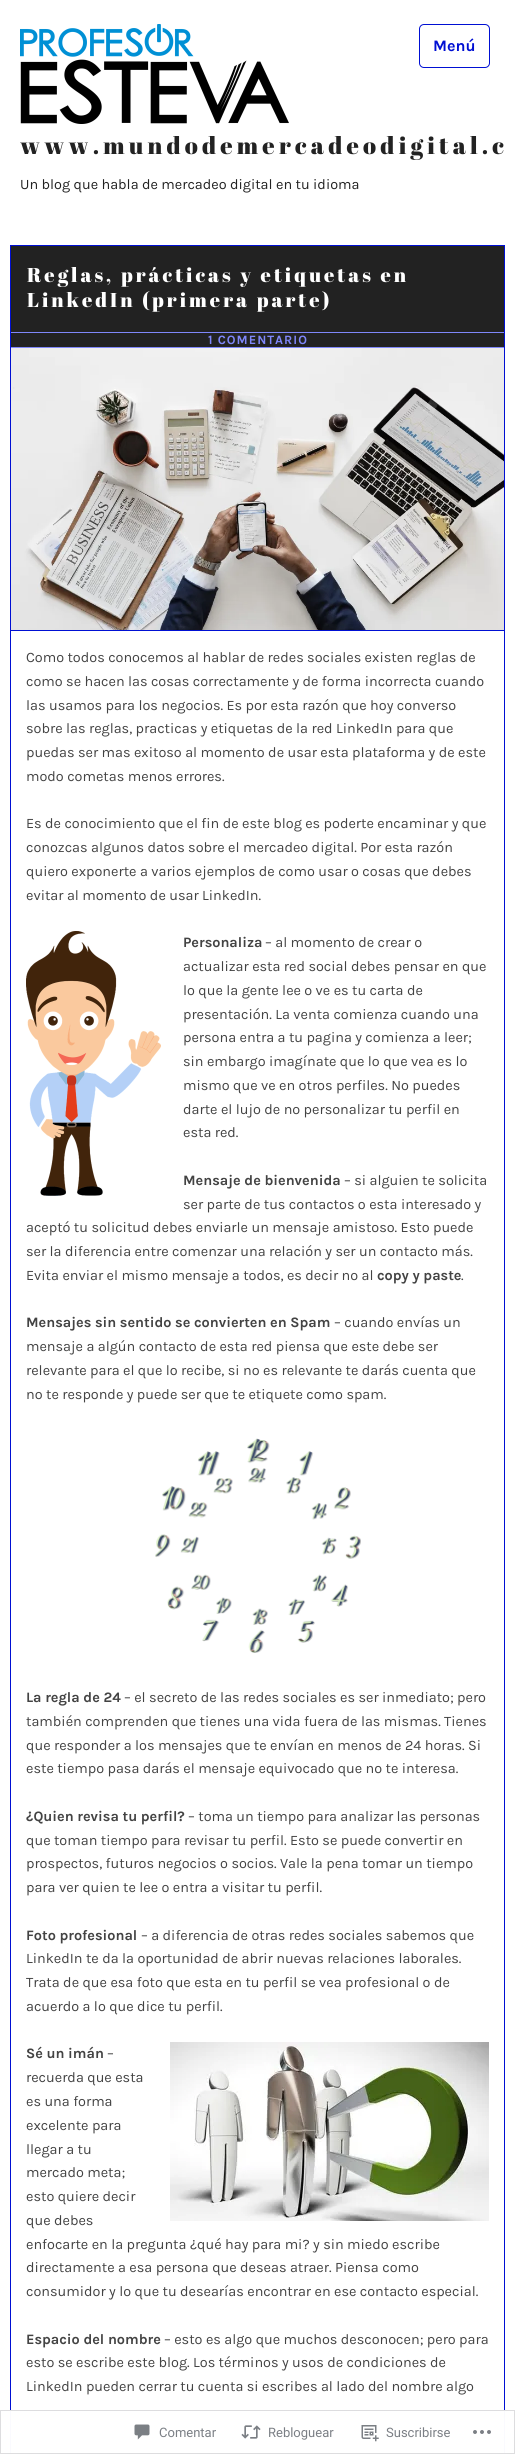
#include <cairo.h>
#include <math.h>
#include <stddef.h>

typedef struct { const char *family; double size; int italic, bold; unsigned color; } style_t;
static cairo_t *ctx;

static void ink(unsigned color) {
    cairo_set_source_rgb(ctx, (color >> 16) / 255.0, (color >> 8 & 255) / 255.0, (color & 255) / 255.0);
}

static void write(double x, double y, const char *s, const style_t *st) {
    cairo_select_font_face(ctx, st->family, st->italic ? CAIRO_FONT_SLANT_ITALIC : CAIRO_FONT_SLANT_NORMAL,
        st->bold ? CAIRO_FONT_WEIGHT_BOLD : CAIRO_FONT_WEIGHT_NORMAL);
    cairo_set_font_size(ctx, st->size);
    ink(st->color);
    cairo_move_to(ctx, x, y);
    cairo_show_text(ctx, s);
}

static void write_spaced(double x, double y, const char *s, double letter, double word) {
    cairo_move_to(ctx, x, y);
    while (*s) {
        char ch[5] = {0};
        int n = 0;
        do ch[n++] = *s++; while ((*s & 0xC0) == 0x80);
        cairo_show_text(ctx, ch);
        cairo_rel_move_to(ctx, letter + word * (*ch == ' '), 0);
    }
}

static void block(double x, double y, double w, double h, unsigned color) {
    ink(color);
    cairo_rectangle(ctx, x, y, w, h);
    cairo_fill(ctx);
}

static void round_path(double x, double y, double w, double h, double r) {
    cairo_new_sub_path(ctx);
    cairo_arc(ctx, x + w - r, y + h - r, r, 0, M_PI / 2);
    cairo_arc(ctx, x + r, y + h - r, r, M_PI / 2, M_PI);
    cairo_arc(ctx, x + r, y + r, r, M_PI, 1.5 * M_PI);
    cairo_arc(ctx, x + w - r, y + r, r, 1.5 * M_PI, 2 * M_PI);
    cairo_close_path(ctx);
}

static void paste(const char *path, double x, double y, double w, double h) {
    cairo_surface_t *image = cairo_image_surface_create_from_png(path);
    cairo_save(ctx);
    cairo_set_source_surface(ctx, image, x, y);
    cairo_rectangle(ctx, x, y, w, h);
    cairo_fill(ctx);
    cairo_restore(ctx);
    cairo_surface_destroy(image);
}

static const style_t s1 = {"Karla", 16, 0, 1, 0x000fd3};
static const style_t s2 = {"Karla", 14.4, 0, 0, 0x222222};
static const style_t s3 = {"Karla", 14.4, 0, 0, 0x434343};
static const style_t s4 = {"Karla", 14.4, 0, 1, 0x434343};
static const style_t s5 = {"Roboto", 13, 0, 0, 0x7b7f85};

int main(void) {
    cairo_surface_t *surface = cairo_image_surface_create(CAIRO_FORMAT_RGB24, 515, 2454);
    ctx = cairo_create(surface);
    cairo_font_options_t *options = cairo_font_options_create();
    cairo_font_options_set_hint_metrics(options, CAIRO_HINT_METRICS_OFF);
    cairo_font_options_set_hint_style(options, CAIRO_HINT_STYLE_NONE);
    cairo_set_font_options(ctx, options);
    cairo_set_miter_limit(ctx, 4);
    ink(0xffffff);
    cairo_paint(ctx);
    round_path(419.5, 24.5, 70, 43, 4.5);
    ink(0x000fd3);
    cairo_set_line_width(ctx, 1);
    cairo_stroke(ctx);
    write(433, 51, "Menú", &s1);
    paste("pic1.png", 20, 24, 269, 100);
    cairo_select_font_face(ctx, "Abril Fatface", CAIRO_FONT_SLANT_NORMAL, CAIRO_FONT_WEIGHT_NORMAL);
    cairo_set_font_size(ctx, 24);
    ink(0x222222);
    write_spaced(20, 154, "www.mundodemercadeodigital.c", 4.2, 0);
    write(20, 189, "Un blog que habla de mercadeo digital en tu idioma", &s2);
    cairo_rectangle(ctx, 10.5, 245.5, 494, 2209);
    ink(0x000fd3);
    cairo_stroke(ctx);
    block(11, 246, 493, 101, 0x222222);
    cairo_select_font_face(ctx, "Abril Fatface", CAIRO_FONT_SLANT_NORMAL, CAIRO_FONT_WEIGHT_NORMAL);
    cairo_set_font_size(ctx, 20);
    ink(0xffffff);
    write_spaced(27, 282, "Reglas, prácticas y etiquetas en", 3, 0);
    write_spaced(27, 307, "LinkedIn (primera parte)", 3, 0);
    block(11, 332, 493, 1, 0x7f87fa);
    cairo_select_font_face(ctx, "Karla", CAIRO_FONT_SLANT_NORMAL, CAIRO_FONT_WEIGHT_BOLD);
    cairo_set_font_size(ctx, 12.75);
    write_spaced(208, 344, "1 COMENTARIO", 1, 0);
    block(11, 347, 493, 1, 0x7f87fa);
    paste("pic2.png", 11, 348, 493, 282);
    block(11, 630, 493, 1, 0x000fd3);
    write(26, 662, "Como todos conocemos al hablar de redes sociales existen reglas de", &s3);
    write(26, 686, "como se hacen las cosas correctamente y de forma incorrecta cuando", &s3);
    write(26, 710, "las usamos para los negocios. Es por esta razón que hoy converso", &s3);
    write(26, 733, "sobre las reglas, practicas y etiquetas de la red LinkedIn para que", &s3);
    write(26, 757, "puedas ser mas exitoso al momento de usar esta plataforma y de este", &s3);
    write(26, 781, "modo cometas menos errores.", &s3);
    write(26, 828, "Es de conocimiento que el fin de este blog es poderte encaminar y que", &s3);
    write(26, 852, "conozcas algunos datos sobre el mercadeo digital. Por esta razón", &s3);
    write(26, 876, "quiero exponerte a varios ejemplos de como usar o cosas que debes", &s3);
    write(26, 900, "evitar al momento de usar LinkedIn.", &s3);
    paste("pic3.png", 26, 931, 135, 265);
    write(183, 947, "Personaliza", &s4);
    write(265, 947, "– al momento de crear o", &s3);
    write(183, 971, "actualizar esta red social debes pensar en que", &s3);
    write(183, 995, "lo que la gente lee o ve es tu carta de", &s3);
    write(183, 1019, "presentación. La venta comienza cuando una", &s3);
    write(183, 1042, "persona entra a tu pagina y comienza a leer;", &s3);
    write(183, 1066, "sin embargo imagínate que lo que vea es lo", &s3);
    write(183, 1090, "mismo que ve en otros perfiles. No puedes", &s3);
    write(183, 1114, "darte el lujo de no personalizar tu perfil en", &s3);
    write(183, 1137, "esta red.", &s3);
    write(183, 1185, "Mensaje de bienvenida", &s4);
    write(344, 1185, "– si alguien te solicita", &s3);
    write(183, 1209, "ser parte de tus contactos o esta interesado y", &s3);
    write(26, 1232, "aceptó tu solicitud debes enviarle un mensaje amistoso. Esto puede", &s3);
    write(26, 1256, "ser la diferencia entre comenzar una relación y ser un contacto más.", &s3);
    write(26, 1280, "Evita enviar el mismo mensaje a todos, es decir no al", &s3);
    write(377, 1280, "copy y paste", &s4);
    write(461, 1280, ".", &s3);
    write(26, 1327, "Mensajes sin sentido se convierten en Spam", &s4);
    write(334, 1327, "– cuando envías un", &s3);
    write(26, 1351, "mensaje a algún contacto de esta red piensa que este debe ser", &s3);
    write(26, 1375, "relevante para el que lo recibe, si no es relevante te darás cuenta que", &s3);
    write(26, 1399, "no te responde y puede ser que te etiquete como spam.", &s3);
    paste("pic4.png", 155, 1438, 206, 215);
    write(26, 1702, "La regla de 24", &s4);
    write(124, 1702, "– el secreto de las redes sociales es ser inmediato; pero", &s3);
    write(26, 1726, "también comprenden que tienes una vida fuera de las mismas. Tienes", &s3);
    write(26, 1750, "que responder a los mensajes que te envían en menos de 24 horas. Si", &s3);
    write(26, 1773, "este tiempo pasa darás el mensaje equivocado que no te interesa.", &s3);
    write(26, 1821, "¿Quien revisa tu perfil?", &s4);
    write(188, 1821, "– toma un tiempo para analizar las personas", &s3);
    write(26, 1845, "que toman tiempo para revisar tu perfil. Esto se puede convertir en", &s3);
    write(26, 1868, "prospectos, futuros negocios o socios. Vale la pena tomar un tiempo", &s3);
    write(26, 1892, "para ver quien te lee o entra a visitar tu perfil.", &s3);
    write(26, 1940, "Foto profesional", &s4);
    write(141, 1940, "– a diferencia de otras redes sociales sabemos que", &s3);
    write(26, 1963, "LinkedIn te da la oportunidad de abrir nuevas relaciones laborales.", &s3);
    write(26, 1987, "Trata de que esa foto que esta en tu perfil se vea profesional o de", &s3);
    write(26, 2011, "acuerdo a lo que dice tu perfil.", &s3);
    paste("pic5.png", 170, 2042, 319, 179);
    write(26, 2058, "Sé un imán", &s4);
    write(107, 2058, "–", &s3);
    write(26, 2082, "recuerda que esta", &s3);
    write(26, 2106, "es una forma", &s3);
    write(26, 2130, "excelente para", &s3);
    write(26, 2154, "llegar a tu", &s3);
    write(26, 2177, "mercado meta;", &s3);
    write(26, 2201, "esto quiere decir", &s3);
    write(26, 2225, "que debes", &s3);
    write(26, 2249, "enfocarte en la pregunta ¿qué hay para mi? y sin miedo escribe", &s3);
    write(26, 2272, "directamente a esa persona que deseas atraer. Piensa como", &s3);
    write(26, 2296, "consumidor y lo que tu desearías encontrar en ese contacto especial.", &s3);
    write(26, 2344, "Espacio del nombre", &s4);
    write(164, 2344, "– esto es algo que muchos desconocen; pero para", &s3);
    write(26, 2367, "esto se escribe este blog. Los términos y usos de condiciones de", &s3);
    write(26, 2391, "LinkedIn pueden cerrar tu cuenta si escribes al lado del nombre algo", &s3);
    cairo_set_source_rgba(ctx, 1, 1, 1, 0.98);
    cairo_rectangle(ctx, 10, 2410, 495, 44);
    cairo_fill(ctx);
    cairo_rectangle(ctx, 0.5, 2410.5, 514, 43);
    cairo_set_source_rgba(ctx, 0.863, 0.863, 0.871, 0.98);
    cairo_stroke(ctx);
    paste("pic6.png", 134, 2424, 16, 16);
    write(159, 2437, "Comentar", &s5);
    paste("pic7.png", 241, 2425, 20, 14);
    write(268, 2437, "Rebloguear", &s5);
    paste("pic8.png", 361, 2425, 18, 17);
    write(386, 2437, "Suscribirse", &s5);
    paste("pic9.png", 473, 2430, 18, 4);
    cairo_surface_write_to_png(surface, "screenshot.png");
    cairo_font_options_destroy(options);
    cairo_destroy(ctx);
    cairo_surface_destroy(surface);
    return 0;
}
